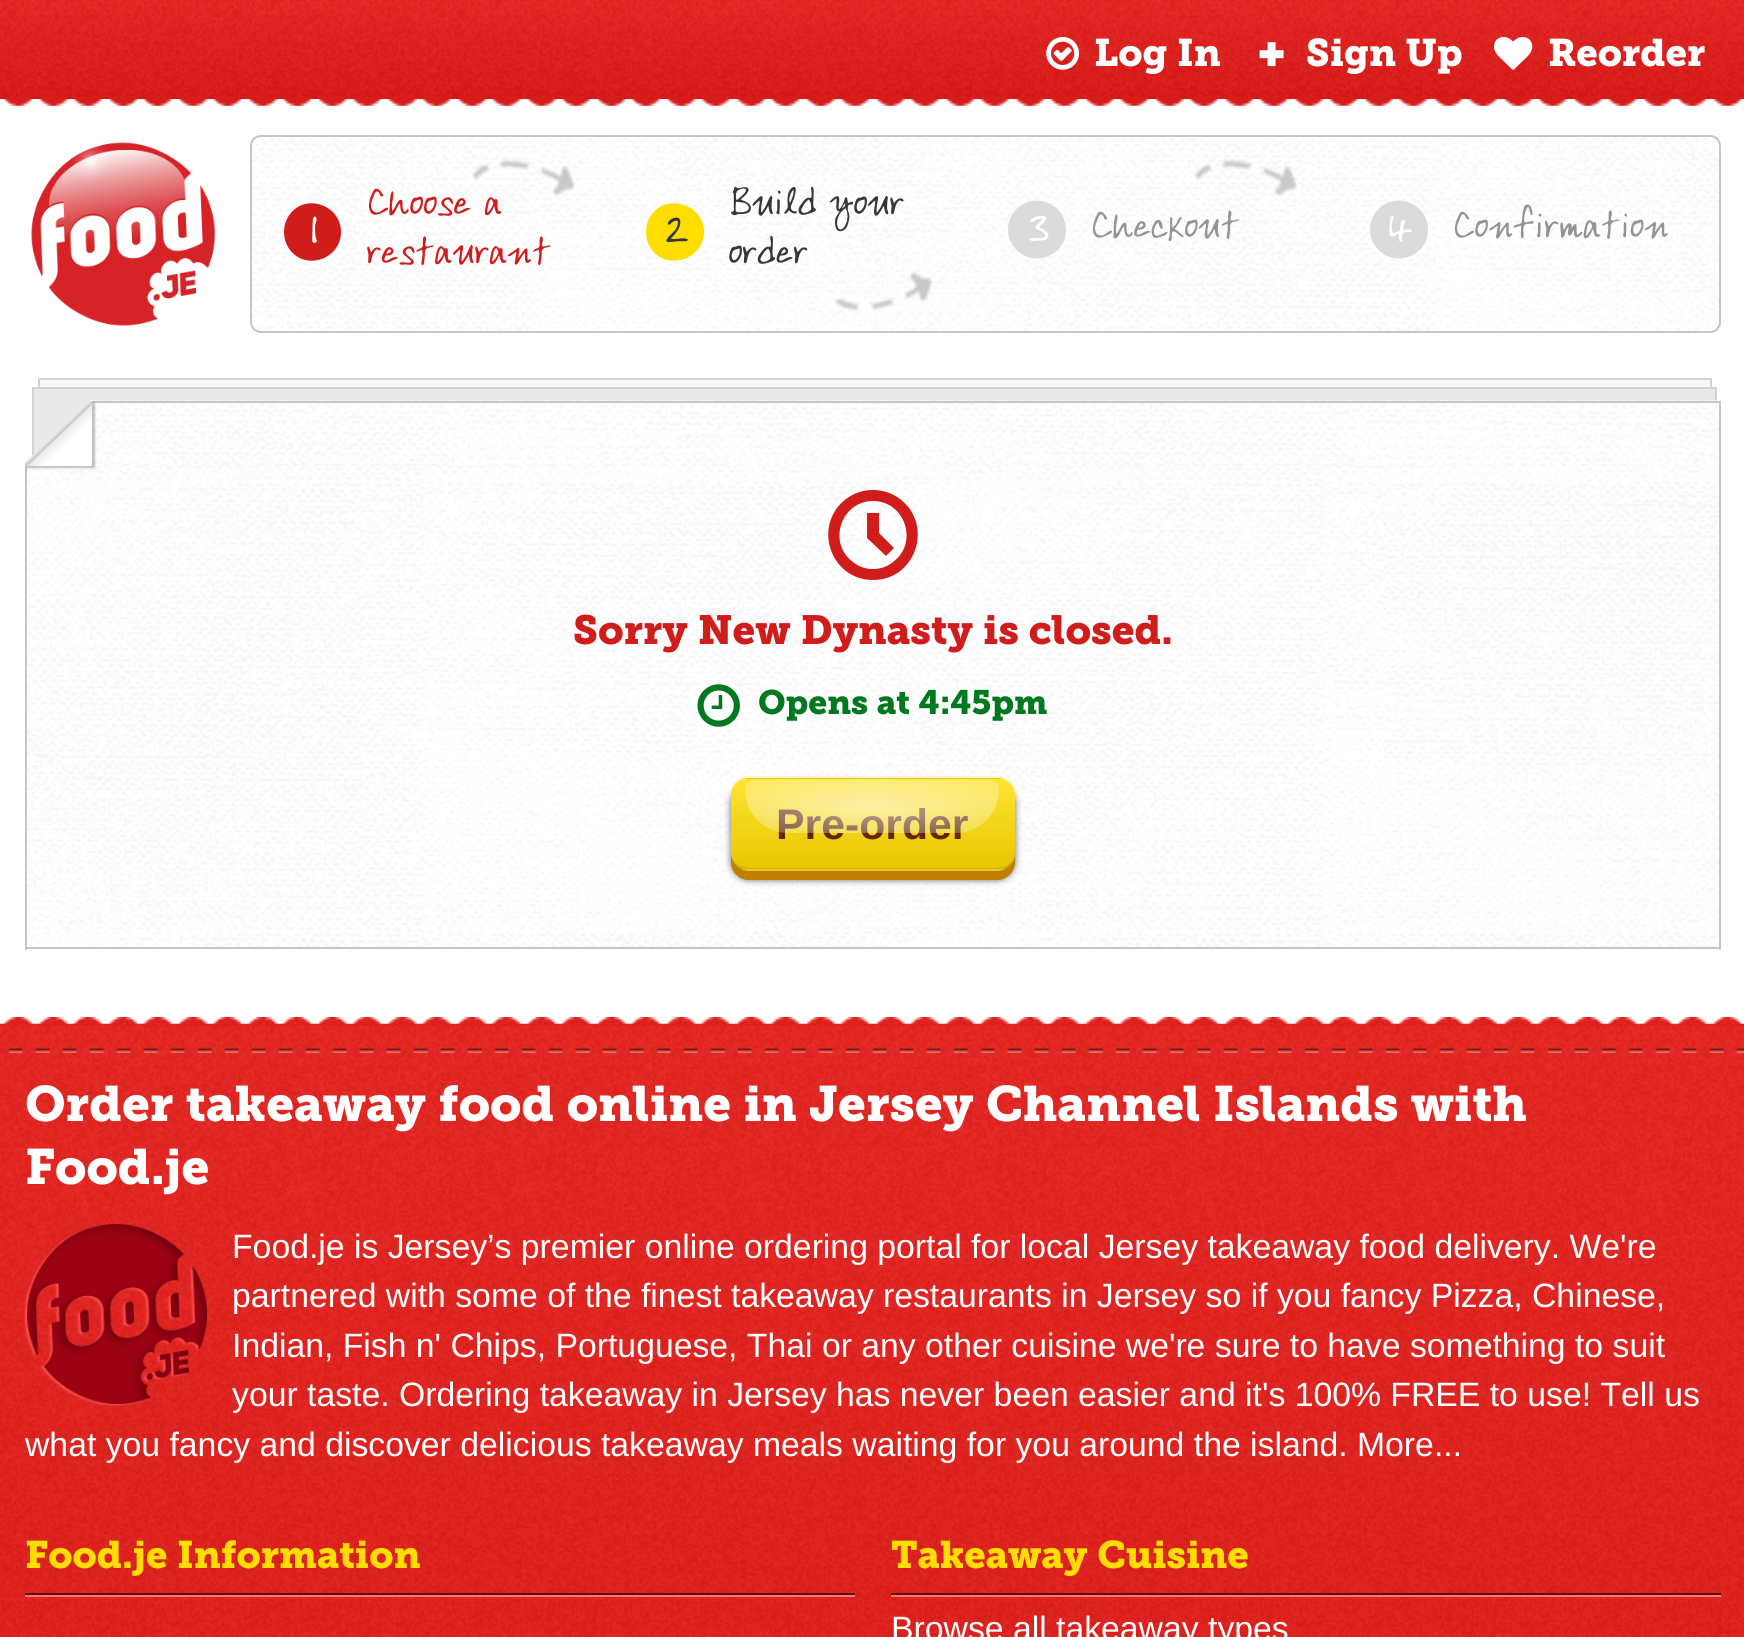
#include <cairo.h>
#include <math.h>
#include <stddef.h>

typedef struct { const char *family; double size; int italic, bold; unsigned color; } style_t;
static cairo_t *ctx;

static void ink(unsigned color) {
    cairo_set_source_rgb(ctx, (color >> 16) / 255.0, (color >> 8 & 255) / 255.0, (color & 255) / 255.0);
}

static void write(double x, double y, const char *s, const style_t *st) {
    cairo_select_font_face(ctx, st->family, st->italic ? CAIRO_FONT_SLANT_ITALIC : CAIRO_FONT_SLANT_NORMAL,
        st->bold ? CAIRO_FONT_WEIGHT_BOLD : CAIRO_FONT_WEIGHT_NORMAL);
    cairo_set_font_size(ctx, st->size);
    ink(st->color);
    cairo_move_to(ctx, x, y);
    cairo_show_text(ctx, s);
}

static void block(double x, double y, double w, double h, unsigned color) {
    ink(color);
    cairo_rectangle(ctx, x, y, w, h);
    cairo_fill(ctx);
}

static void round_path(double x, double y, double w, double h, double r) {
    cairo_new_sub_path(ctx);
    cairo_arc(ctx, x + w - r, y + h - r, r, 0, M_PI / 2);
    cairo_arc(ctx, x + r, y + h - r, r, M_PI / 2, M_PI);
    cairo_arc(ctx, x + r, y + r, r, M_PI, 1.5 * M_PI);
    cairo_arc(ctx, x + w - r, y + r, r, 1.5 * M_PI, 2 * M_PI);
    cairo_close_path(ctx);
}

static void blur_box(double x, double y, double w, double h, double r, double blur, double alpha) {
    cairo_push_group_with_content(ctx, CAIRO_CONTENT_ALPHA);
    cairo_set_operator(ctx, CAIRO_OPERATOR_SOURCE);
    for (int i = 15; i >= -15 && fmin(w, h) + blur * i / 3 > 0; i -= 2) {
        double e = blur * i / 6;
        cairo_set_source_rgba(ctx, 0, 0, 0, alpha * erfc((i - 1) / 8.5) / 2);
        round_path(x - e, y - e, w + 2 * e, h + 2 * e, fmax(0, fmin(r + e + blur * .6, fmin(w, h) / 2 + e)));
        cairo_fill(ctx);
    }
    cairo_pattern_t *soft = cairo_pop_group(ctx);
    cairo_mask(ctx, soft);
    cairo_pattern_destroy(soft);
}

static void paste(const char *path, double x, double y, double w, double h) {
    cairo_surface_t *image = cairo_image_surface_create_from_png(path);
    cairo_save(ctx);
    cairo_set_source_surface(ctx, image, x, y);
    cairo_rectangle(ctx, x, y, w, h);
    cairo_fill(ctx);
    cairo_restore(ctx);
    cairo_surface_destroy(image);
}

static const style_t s1 = {"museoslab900", 38.25, 0, 0, 0xffffff};
static const style_t s2 = {"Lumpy", 33.75, 0, 0, 0xd01c1a};
static const style_t s3 = {"Lumpy", 38.25, 0, 0, 0xffffff};
static const style_t s4 = {"Lumpy", 38.25, 0, 0, 0x373737};
static const style_t s5 = {"Lumpy", 33.75, 0, 0, 0x373737};
static const style_t s6 = {"Lumpy", 33.75, 0, 0, 0x959494};
static const style_t s7 = {"museoslab900", 40.5, 0, 0, 0xd01c1a};
static const style_t s8 = {"museoslab900", 33.75, 0, 0, 0x00781f};
static const style_t s9 = {"Liberation Sans", 42.75, 0, 1, 0x642506};
static const style_t s10 = {"museoslab900", 49.5, 0, 0, 0xffffff};
static const style_t s11 = {"Liberation Sans", 33.75, 0, 0, 0xffffff};
static const style_t s12 = {"museoslab900", 38.25, 0, 0, 0xffdd00};

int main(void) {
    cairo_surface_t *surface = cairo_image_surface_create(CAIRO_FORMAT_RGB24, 1744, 1637);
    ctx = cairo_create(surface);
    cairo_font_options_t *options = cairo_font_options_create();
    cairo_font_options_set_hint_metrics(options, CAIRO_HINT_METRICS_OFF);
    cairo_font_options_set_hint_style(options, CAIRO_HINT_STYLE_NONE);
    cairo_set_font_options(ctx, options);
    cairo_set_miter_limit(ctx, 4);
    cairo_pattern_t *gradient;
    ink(0xffffff);
    cairo_paint(ctx);
    paste("pic1.png", 0, 0, 1744, 99);
    paste("pic2.png", 1046, 36, 34, 34);
    write(1094, 66, "Log In", &s1);
    paste("pic3.png", 1259, 42, 25, 25);
    write(1306, 66, "Sign Up", &s1);
    paste("pic4.png", 1494, 36, 39, 34);
    write(1548, 66, "Reorder", &s1);
    paste("pic5.png", 2, 96, 1742, 10);
    paste("pic6.png", 31, 142, 185, 184);
    paste("pic7.png", 250, 135, 1471, 198);
    round_path(251, 136, 1469, 196, 10);
    ink(0xc5c5c5);
    cairo_stroke(ctx);
    write(366, 214, "Choose a", &s2);
    paste("pic8.png", 472, 159, 103, 38);
    cairo_new_path(ctx);
    cairo_move_to(ctx, 341, 232);
    cairo_curve_to(ctx, 341, 259, 306, 271, 290, 250);
    cairo_curve_to(ctx, 286, 245, 284, 238, 284, 232);
    cairo_curve_to(ctx, 284, 226, 286, 219, 290, 214);
    cairo_curve_to(ctx, 306, 193, 341, 205, 341, 232);
    cairo_close_path(ctx);
    cairo_fill(ctx);
    write(309, 242, "1", &s3);
    write(366, 263, "restaurant", &s2);
    ink(0xffdd00);
    cairo_new_path(ctx);
    cairo_move_to(ctx, 704, 232);
    cairo_curve_to(ctx, 704, 259, 668, 271, 652, 250);
    cairo_curve_to(ctx, 648, 245, 646, 238, 646, 232);
    cairo_curve_to(ctx, 646, 226, 648, 219, 652, 214);
    cairo_curve_to(ctx, 668, 193, 704, 205, 704, 232);
    cairo_close_path(ctx);
    cairo_fill(ctx);
    write(663, 242, "2", &s4);
    write(728, 214, "Build your", &s5);
    write(728, 263, "order", &s5);
    paste("pic9.png", 834, 271, 98, 40);
    paste("pic10.png", 1194, 159, 103, 38);
    ink(0xdbdbdb);
    cairo_new_path(ctx);
    cairo_move_to(ctx, 1066, 230);
    cairo_curve_to(ctx, 1066, 257, 1031, 269, 1014, 247);
    cairo_curve_to(ctx, 1010, 242, 1008, 236, 1008, 230);
    cairo_curve_to(ctx, 1008, 223, 1010, 217, 1014, 212);
    cairo_curve_to(ctx, 1031, 190, 1066, 202, 1066, 230);
    cairo_close_path(ctx);
    cairo_fill(ctx);
    write(1026, 241, "3", &s3);
    write(1090, 237, "Checkout", &s6);
    ink(0xdbdbdb);
    cairo_new_path(ctx);
    cairo_move_to(ctx, 1428, 230);
    cairo_curve_to(ctx, 1428, 257, 1393, 269, 1376, 247);
    cairo_curve_to(ctx, 1372, 242, 1370, 236, 1370, 230);
    cairo_curve_to(ctx, 1370, 223, 1372, 217, 1376, 212);
    cairo_curve_to(ctx, 1393, 190, 1428, 202, 1428, 230);
    cairo_close_path(ctx);
    cairo_fill(ctx);
    write(1386, 241, "4", &s3);
    write(1452, 237, "Confirmation", &s6);
    block(40, 380, 1670, 7, 0xf8f8f8);
    cairo_rectangle(ctx, 39, 379, 1672, 228);
    ink(0xd2d2d2);
    cairo_stroke(ctx);
    block(34, 389, 1681, 77, 0xe9e9e9);
    cairo_rectangle(ctx, 33, 388, 1683, 228);
    ink(0xd2d2d2);
    cairo_stroke(ctx);
    paste("pic12.png", 27, 465, 1692, 485);
    paste("pic11.png", 90, 400, 1631, 66);
    block(90, 401, 1631, 2, 0xc5c5c5);
    block(1719, 466, 2, 484, 0xc5c5c5);
    block(25, 947, 1696, 2, 0xc5c5c5);
    block(25, 466, 2, 484, 0xc5c5c5);
    cairo_save(ctx);
    cairo_set_fill_rule(ctx, CAIRO_FILL_RULE_EVEN_ODD);
    cairo_new_path(ctx);
    cairo_move_to(ctx, 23, 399);
    cairo_line_to(ctx, 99, 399);
    cairo_line_to(ctx, 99, 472);
    cairo_line_to(ctx, 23, 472);
    cairo_close_path(ctx);
    cairo_move_to(ctx, 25, 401);
    cairo_line_to(ctx, 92, 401);
    cairo_line_to(ctx, 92, 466);
    cairo_line_to(ctx, 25, 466);
    cairo_close_path(ctx);
    cairo_clip(ctx);
    ink(0x000000);
    blur_box(27, 403, 68, 65, 0, 1, 0.25);
    cairo_restore(ctx);
    gradient = cairo_pattern_create_linear(26, 399, 91, 467);
    cairo_pattern_add_color_stop_rgba(gradient, 0, 1, 1, 1, 0);
    cairo_pattern_add_color_stop_rgba(gradient, 0.48, 0.922, 0.922, 0.922, 0);
    cairo_pattern_add_color_stop_rgba(gradient, 0.48, 0.922, 0.922, 0.922, 1);
    cairo_pattern_add_color_stop_rgba(gradient, 0.52, 0.773, 0.773, 0.773, 1);
    cairo_pattern_add_color_stop_rgba(gradient, 0.53, 0.914, 0.914, 0.914, 1);
    cairo_pattern_add_color_stop_rgba(gradient, 0.65, 1, 1, 1, 1);
    cairo_pattern_add_color_stop_rgba(gradient, 1, 1, 1, 1, 1);
    cairo_set_source(ctx, gradient);
    cairo_pattern_destroy(gradient);
    cairo_rectangle(ctx, 25, 401, 67, 65);
    cairo_fill(ctx);
    block(1719, 401, 2, 65, 0xc5c5c5);
    block(362, 491, 1022, 407, 0xffffff);
    paste("pic13.png", 362, 490, 1022, 408);
    ink(0xd01c1a);
    cairo_new_path(ctx);
    cairo_move_to(ctx, 886, 556);
    cairo_line_to(ctx, 867, 538);
    cairo_line_to(ctx, 867, 513);
    cairo_line_to(ctx, 879, 513);
    cairo_line_to(ctx, 879, 533);
    cairo_line_to(ctx, 894, 548);
    cairo_close_path(ctx);
    cairo_move_to(ctx, 873, 490);
    cairo_curve_to(ctx, 863, 490, 854, 493, 846, 499);
    cairo_curve_to(ctx, 812, 525, 830, 580, 873, 580);
    cairo_curve_to(ctx, 916, 580, 934, 525, 900, 499);
    cairo_curve_to(ctx, 892, 493, 883, 490, 873, 490);
    cairo_close_path(ctx);
    cairo_move_to(ctx, 873, 569);
    cairo_curve_to(ctx, 866, 569, 859, 567, 853, 562);
    cairo_curve_to(ctx, 827, 543, 841, 501, 873, 501);
    cairo_curve_to(ctx, 905, 501, 919, 543, 893, 562);
    cairo_curve_to(ctx, 887, 567, 880, 569, 873, 569);
    cairo_close_path(ctx);
    cairo_fill(ctx);
    write(573, 644, "Sorry New Dynasty is closed.", &s7);
    paste("pic14.png", 697, 684, 43, 43);
    write(758, 714, "Opens at 4:45pm", &s8);
    ink(0x000000);
    blur_box(731, 785, 284, 95, 18, 3.5, 0.6);
    ink(0xc17e00);
    cairo_new_path(ctx);
    cairo_move_to(ctx, 731, 800);
    cairo_line_to(ctx, 731, 862);
    cairo_curve_to(ctx, 731, 872, 739, 880, 749, 880);
    cairo_line_to(ctx, 997, 880);
    cairo_curve_to(ctx, 1007, 880, 1015, 872, 1015, 862);
    cairo_line_to(ctx, 1015, 800);
    cairo_line_to(ctx, 1015, 853);
    cairo_curve_to(ctx, 1015, 863, 1007, 871, 997, 871);
    cairo_line_to(ctx, 749, 871);
    cairo_curve_to(ctx, 739, 871, 731, 863, 731, 853);
    cairo_close_path(ctx);
    cairo_fill(ctx);
    cairo_save(ctx);
    round_path(731, 776, 284, 95, 18);
    cairo_clip(ctx);
    gradient = cairo_pattern_create_linear(873, 689, 873, 779);
    cairo_pattern_add_color_stop_rgba(gradient, 0, 1, 0.894, 0.2, 1);
    cairo_pattern_add_color_stop_rgba(gradient, 1, 0.902, 0.78, 0, 1);
    cairo_set_source(ctx, gradient);
    cairo_pattern_destroy(gradient);
    cairo_rectangle(ctx, 731, 776, 284, 3);
    cairo_fill(ctx);
    gradient = cairo_pattern_create_linear(873, 779, 873, 869);
    cairo_pattern_add_color_stop_rgba(gradient, 0, 1, 0.894, 0.2, 1);
    cairo_pattern_add_color_stop_rgba(gradient, 1, 0.902, 0.78, 0, 1);
    cairo_set_source(ctx, gradient);
    cairo_pattern_destroy(gradient);
    cairo_rectangle(ctx, 731, 779, 284, 90);
    cairo_fill(ctx);
    gradient = cairo_pattern_create_linear(873, 869, 873, 959);
    cairo_pattern_add_color_stop_rgba(gradient, 0, 1, 0.894, 0.2, 1);
    cairo_pattern_add_color_stop_rgba(gradient, 1, 0.902, 0.78, 0, 1);
    cairo_set_source(ctx, gradient);
    cairo_pattern_destroy(gradient);
    cairo_rectangle(ctx, 741, 869, 264, 2);
    cairo_fill(ctx);
    cairo_restore(ctx);
    cairo_set_source_rgba(ctx, 1, 1, 1, 0.8);
    cairo_new_path(ctx);
    cairo_move_to(ctx, 749, 778);
    cairo_curve_to(ctx, 740, 778, 733, 784, 731, 792);
    cairo_line_to(ctx, 731, 791);
    cairo_curve_to(ctx, 733, 783, 738, 778, 746, 776);
    cairo_line_to(ctx, 1000, 776);
    cairo_curve_to(ctx, 1008, 778, 1013, 783, 1015, 791);
    cairo_line_to(ctx, 1015, 792);
    cairo_curve_to(ctx, 1013, 784, 1006, 778, 997, 778);
    cairo_close_path(ctx);
    cairo_fill(ctx);
    cairo_set_source_rgba(ctx, 0, 0, 0, 0.1);
    cairo_new_path(ctx);
    cairo_move_to(ctx, 746, 871);
    cairo_curve_to(ctx, 739, 870, 731, 863, 731, 855);
    cairo_curve_to(ctx, 733, 862, 740, 868, 749, 868);
    cairo_line_to(ctx, 997, 868);
    cairo_curve_to(ctx, 1006, 868, 1013, 862, 1015, 855);
    cairo_line_to(ctx, 1015, 856);
    cairo_curve_to(ctx, 1013, 864, 1008, 869, 1000, 871);
    cairo_close_path(ctx);
    cairo_fill(ctx);
    write(776, 839, "Pre-order", &s9);
    gradient = cairo_pattern_create_radial(0, 0, 0, 0, 0, 1);
    cairo_pattern_set_matrix(gradient, &(cairo_matrix_t){1.0 / 180, 0, 0, 1.0 / 38, -1.0 * 872 / 180, -1.0 * 806 / 38});
    cairo_pattern_add_color_stop_rgba(gradient, 0, 1, 1, 1, 0.6);
    cairo_pattern_add_color_stop_rgba(gradient, 1, 1, 1, 1, 0.2);
    cairo_set_source(ctx, gradient);
    cairo_pattern_destroy(gradient);
    cairo_new_path(ctx);
    cairo_move_to(ctx, 756, 779);
    cairo_line_to(ctx, 988, 779);
    cairo_curve_to(ctx, 994, 779, 999, 784, 999, 790);
    cairo_curve_to(ctx, 999, 813.5, 979.5, 833, 956, 833);
    cairo_line_to(ctx, 788, 833);
    cairo_curve_to(ctx, 764.5, 833, 745, 813.5, 745, 790);
    cairo_curve_to(ctx, 745, 784, 750, 779, 756, 779);
    cairo_close_path(ctx);
    cairo_fill(ctx);
    paste("pic15.png", 0, 1023, 1744, 614);
    paste("pic16.png", 2, 1017, 1742, 9);
    paste("pic17.png", 8, 1048, 1736, 5);
    write(25, 1121, "Order takeaway food online in Jersey Channel Islands with", &s10);
    write(25, 1184, "Food.je", &s10);
    paste("pic18.png", 24, 1224, 184, 182);
    write(232, 1258, "Food.je is Jersey’s premier online ordering portal for local Jersey takeaway food delivery. We're", &s11);
    write(232, 1307, "partnered with some of the finest takeaway restaurants in Jersey so if you fancy Pizza, Chinese,", &s11);
    write(232, 1357, "Indian, Fish n' Chips, Portuguese, Thai or any other cuisine we're sure to have something to suit", &s11);
    write(232, 1406, "your taste. Ordering takeaway in Jersey has never been easier and it's 100% FREE to use! Tell us", &s11);
    write(25, 1456, "what you fancy and discover delicious takeaway meals waiting for you around the island. More...", &s11);
    block(25, 1593, 830, 2, 0x5c0d0d);
    write(25, 1568, "Food.je Information", &s12);
    block(25, 1595, 830, 2, 0xff7777);
    block(891, 1593, 830, 2, 0x5c0d0d);
    write(891, 1568, "Takeaway Cuisine", &s12);
    block(891, 1595, 830, 2, 0xff7777);
    write(891, 1640, "Browse all takeaway types", &s11);
    cairo_surface_write_to_png(surface, "screenshot.png");
    cairo_font_options_destroy(options);
    cairo_destroy(ctx);
    cairo_surface_destroy(surface);
    return 0;
}
